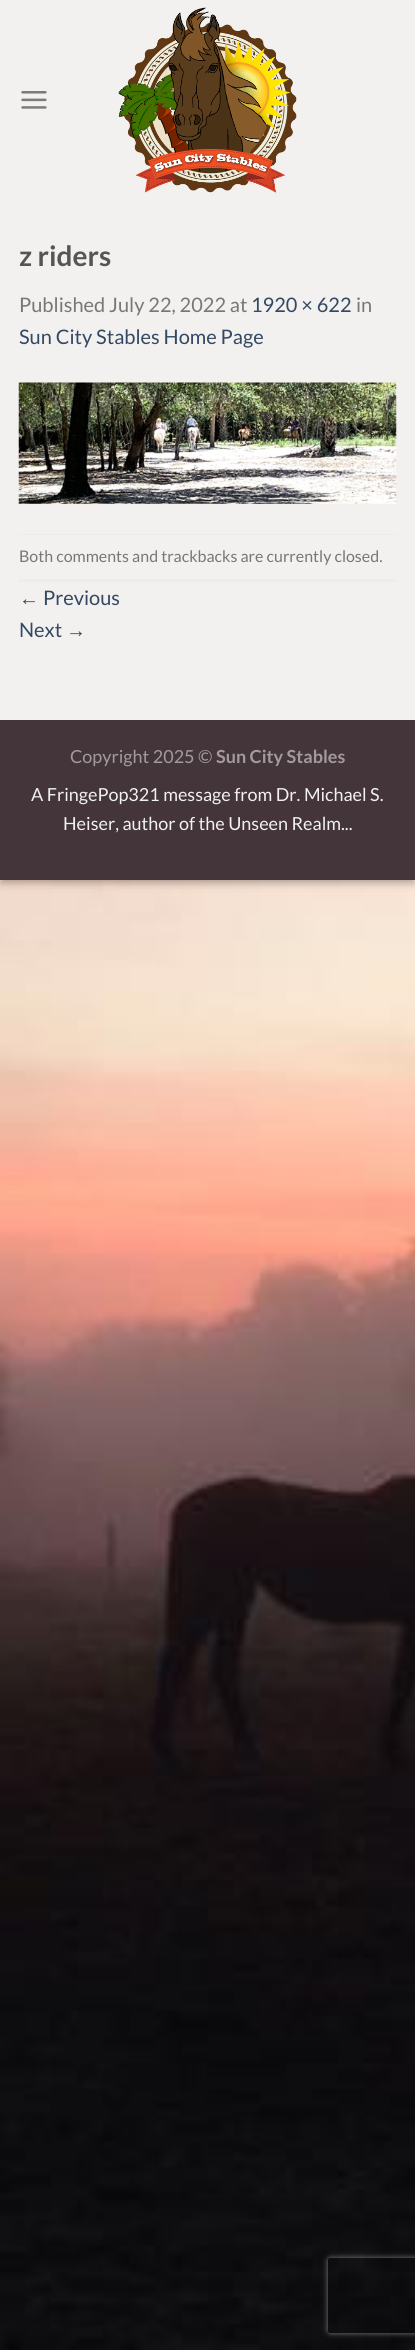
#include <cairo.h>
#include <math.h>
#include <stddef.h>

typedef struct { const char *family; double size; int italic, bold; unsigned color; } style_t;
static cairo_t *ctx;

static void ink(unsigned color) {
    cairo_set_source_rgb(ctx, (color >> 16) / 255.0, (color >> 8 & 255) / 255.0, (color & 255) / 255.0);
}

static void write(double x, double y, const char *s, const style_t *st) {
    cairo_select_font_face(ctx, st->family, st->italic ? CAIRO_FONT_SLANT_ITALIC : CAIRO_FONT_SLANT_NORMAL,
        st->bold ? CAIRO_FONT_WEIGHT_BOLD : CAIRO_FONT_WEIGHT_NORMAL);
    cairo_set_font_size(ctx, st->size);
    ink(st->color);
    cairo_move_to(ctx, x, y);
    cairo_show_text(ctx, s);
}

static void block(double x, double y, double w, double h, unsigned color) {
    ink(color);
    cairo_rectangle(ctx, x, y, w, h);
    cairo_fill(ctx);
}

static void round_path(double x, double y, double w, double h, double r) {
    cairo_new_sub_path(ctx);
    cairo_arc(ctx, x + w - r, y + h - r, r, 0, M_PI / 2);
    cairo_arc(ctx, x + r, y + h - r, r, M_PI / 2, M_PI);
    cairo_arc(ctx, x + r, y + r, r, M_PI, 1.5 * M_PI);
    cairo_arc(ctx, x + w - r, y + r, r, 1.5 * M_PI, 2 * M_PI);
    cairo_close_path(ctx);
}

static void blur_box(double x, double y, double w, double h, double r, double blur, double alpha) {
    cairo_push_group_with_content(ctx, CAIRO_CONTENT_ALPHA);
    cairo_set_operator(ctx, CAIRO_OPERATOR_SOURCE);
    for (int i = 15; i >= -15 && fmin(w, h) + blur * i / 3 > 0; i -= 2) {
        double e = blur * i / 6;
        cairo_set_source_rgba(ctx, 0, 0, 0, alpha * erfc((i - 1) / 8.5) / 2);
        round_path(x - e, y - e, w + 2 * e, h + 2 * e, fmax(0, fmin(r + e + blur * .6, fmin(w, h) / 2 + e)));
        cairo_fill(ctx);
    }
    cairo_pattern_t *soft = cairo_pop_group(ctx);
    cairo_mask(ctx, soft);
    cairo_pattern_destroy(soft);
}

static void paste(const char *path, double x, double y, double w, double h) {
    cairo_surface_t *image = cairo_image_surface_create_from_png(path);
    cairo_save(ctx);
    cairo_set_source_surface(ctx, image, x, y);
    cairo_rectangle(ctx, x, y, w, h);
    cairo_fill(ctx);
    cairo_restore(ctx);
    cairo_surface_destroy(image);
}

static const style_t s1 = {"Lato", 28, 0, 1, 0x555555};
static const style_t s2 = {"Lato", 20, 0, 0, 0x777777};
static const style_t s3 = {"Lato", 20, 0, 0, 0x334862};
static const style_t s4 = {"Lato", 16, 0, 0, 0x777777};
static const style_t s5 = {"Liberation Sans", 20, 0, 0, 0x334862};
static const style_t s6 = {"Lato", 18, 0, 0, 0xa29a9d};
static const style_t s7 = {"Lato", 18, 0, 1, 0xa29a9d};
static const style_t s8 = {"Lato", 18, 0, 0, 0xf1f1f1};

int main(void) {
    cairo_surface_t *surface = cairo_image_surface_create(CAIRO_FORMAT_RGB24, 415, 2350);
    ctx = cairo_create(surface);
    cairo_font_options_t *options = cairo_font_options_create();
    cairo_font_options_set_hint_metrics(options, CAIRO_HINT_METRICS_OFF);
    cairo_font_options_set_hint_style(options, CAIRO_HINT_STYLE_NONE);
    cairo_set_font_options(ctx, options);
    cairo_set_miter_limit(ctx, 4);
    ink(0xffffff);
    cairo_paint(ctx);
    paste("pic1.png", 0, 880, 415, 1470);
    ink(0x000000);
    blur_box(0, 4, 415, 880, 0, 4, 0.23);
    blur_box(5, 9, 405, 870, 0, 4, 0.16);
    block(0, 0, 415, 720, 0xf3f0f0);
    paste("pic2.png", 21, 91, 26, 18);
    paste("pic3.png", 118, 7, 179, 186);
    write(19, 266, "z riders", &s1);
    write(19, 312, "Published July 22, 2022 at", &s2);
    write(251, 312, "1920 × 622", &s3);
    write(356, 312, "in", &s2);
    write(19, 344, "Sun City Stables Home Page", &s3);
    paste("pic4.png", 18, 382, 379, 122);
    block(19, 534, 377, 1, 0xececec);
    block(19, 579, 377, 3, 0xececec);
    write(19, 562, "Both comments and trackbacks are currently closed.", &s4);
    write(19, 605, "←", &s5);
    write(43, 605, "Previous", &s3);
    write(19, 637, "Next", &s3);
    write(66, 637, "→", &s5);
    block(0, 720, 415, 160, 0x44353a);
    write(70, 763, "Copyright 2025 ©", &s6);
    write(216, 763, "Sun City Stables", &s7);
    write(31, 801, "A FringePop321 message from Dr. Michael S.", &s8);
    write(63, 830, "Heiser, author of the Unseen Realm...", &s8);
    cairo_save(ctx);
    cairo_set_fill_rule(ctx, CAIRO_FILL_RULE_EVEN_ODD);
    cairo_new_path(ctx);
    cairo_move_to(ctx, 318, 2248);
    cairo_line_to(ctx, 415, 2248);
    cairo_line_to(ctx, 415, 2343);
    cairo_line_to(ctx, 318, 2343);
    cairo_close_path(ctx);
    cairo_move_to(ctx, 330.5, 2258);
    cairo_line_to(ctx, 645.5, 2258);
    cairo_curve_to(ctx, 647, 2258, 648, 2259, 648, 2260.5);
    cairo_line_to(ctx, 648, 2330.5);
    cairo_curve_to(ctx, 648, 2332, 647, 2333, 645.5, 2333);
    cairo_line_to(ctx, 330.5, 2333);
    cairo_curve_to(ctx, 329, 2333, 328, 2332, 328, 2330.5);
    cairo_line_to(ctx, 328, 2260.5);
    cairo_curve_to(ctx, 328, 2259, 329, 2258, 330.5, 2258);
    cairo_close_path(ctx);
    cairo_clip(ctx);
    ink(0x808080);
    blur_box(328, 2258, 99, 75, 2.5, 3, 1);
    cairo_restore(ctx);
    cairo_surface_write_to_png(surface, "screenshot.png");
    cairo_font_options_destroy(options);
    cairo_destroy(ctx);
    cairo_surface_destroy(surface);
    return 0;
}
